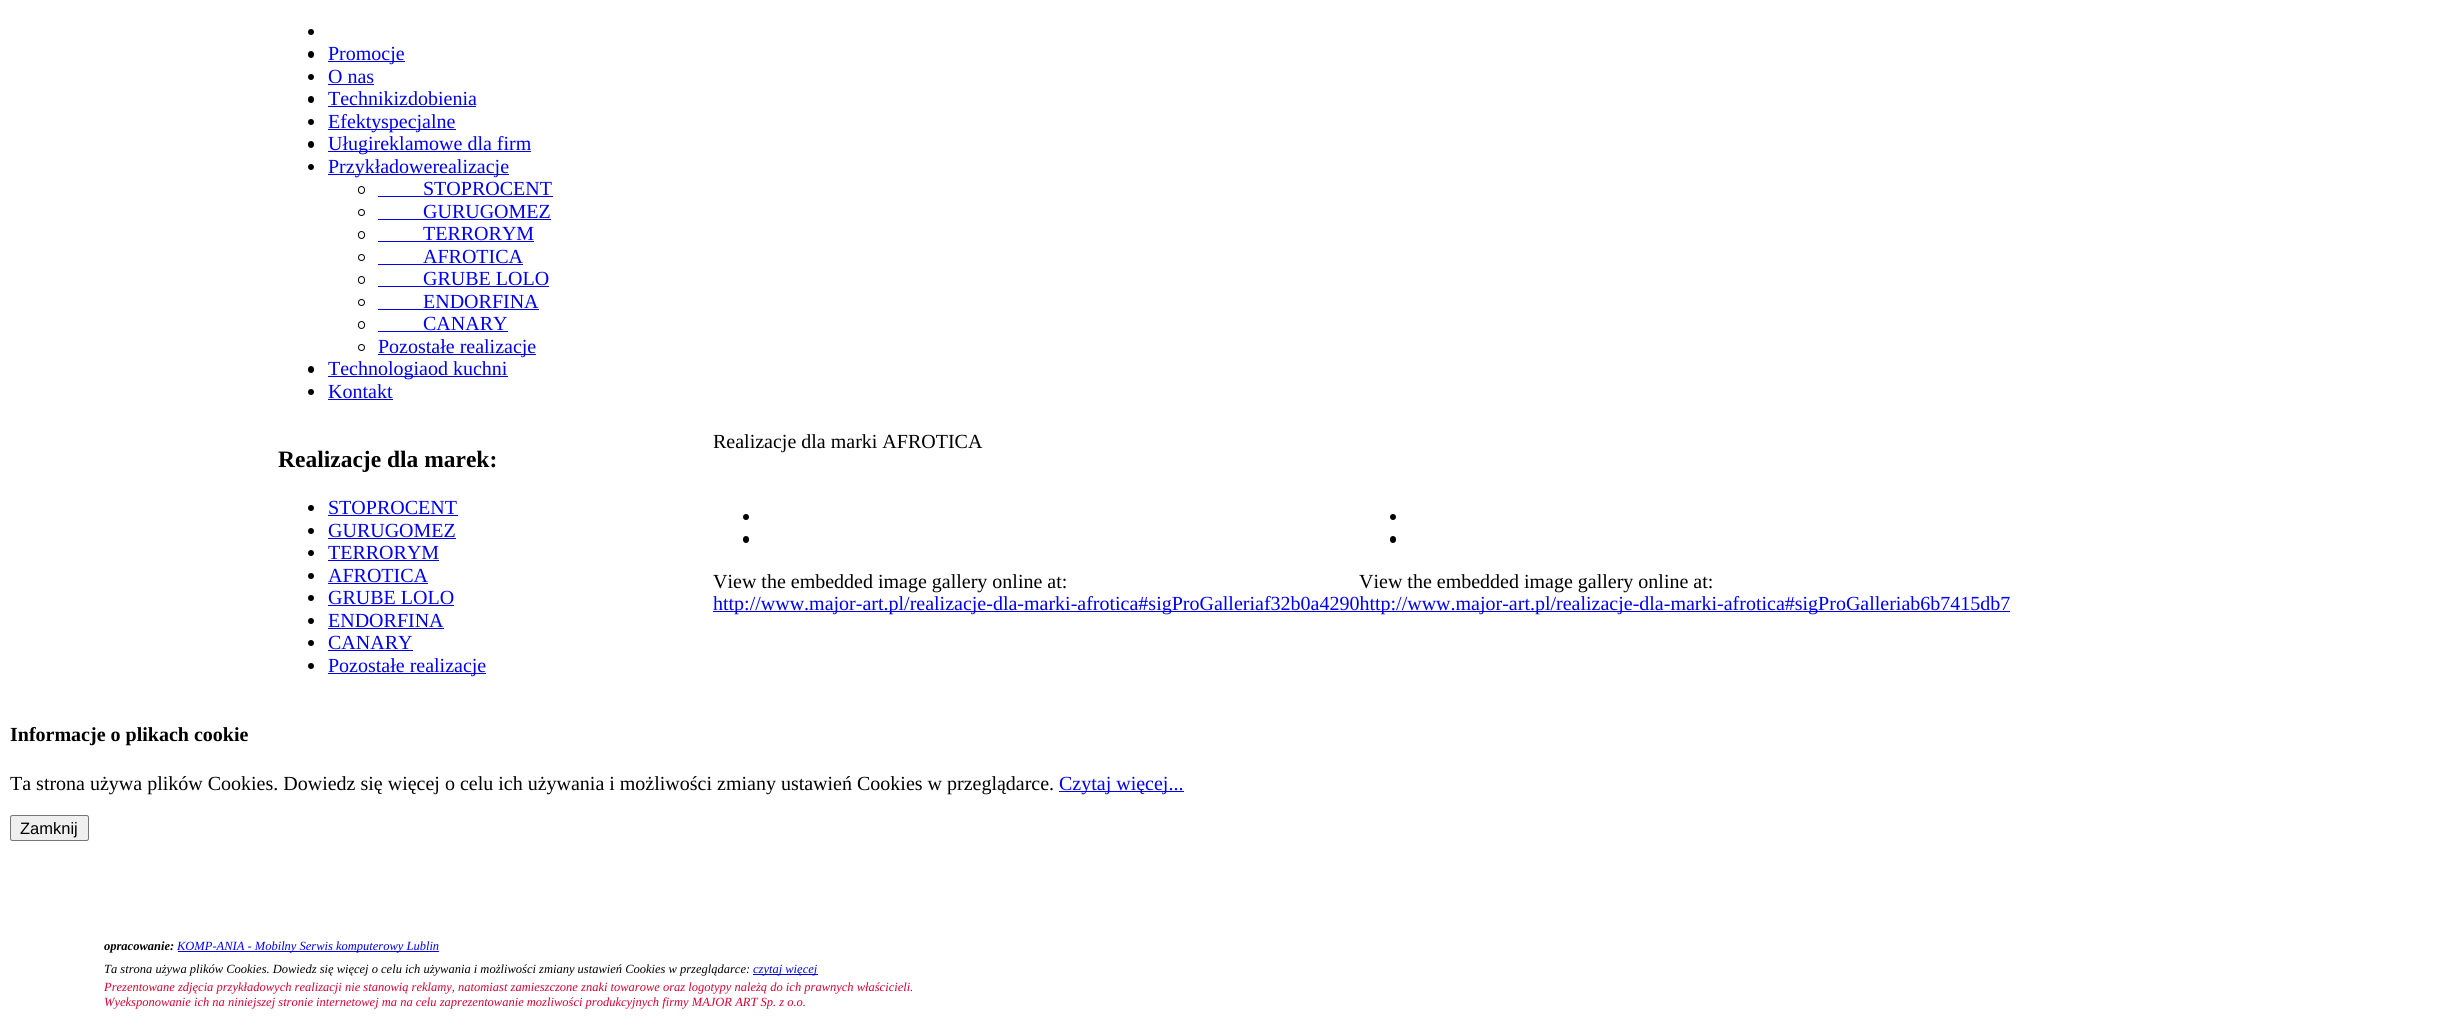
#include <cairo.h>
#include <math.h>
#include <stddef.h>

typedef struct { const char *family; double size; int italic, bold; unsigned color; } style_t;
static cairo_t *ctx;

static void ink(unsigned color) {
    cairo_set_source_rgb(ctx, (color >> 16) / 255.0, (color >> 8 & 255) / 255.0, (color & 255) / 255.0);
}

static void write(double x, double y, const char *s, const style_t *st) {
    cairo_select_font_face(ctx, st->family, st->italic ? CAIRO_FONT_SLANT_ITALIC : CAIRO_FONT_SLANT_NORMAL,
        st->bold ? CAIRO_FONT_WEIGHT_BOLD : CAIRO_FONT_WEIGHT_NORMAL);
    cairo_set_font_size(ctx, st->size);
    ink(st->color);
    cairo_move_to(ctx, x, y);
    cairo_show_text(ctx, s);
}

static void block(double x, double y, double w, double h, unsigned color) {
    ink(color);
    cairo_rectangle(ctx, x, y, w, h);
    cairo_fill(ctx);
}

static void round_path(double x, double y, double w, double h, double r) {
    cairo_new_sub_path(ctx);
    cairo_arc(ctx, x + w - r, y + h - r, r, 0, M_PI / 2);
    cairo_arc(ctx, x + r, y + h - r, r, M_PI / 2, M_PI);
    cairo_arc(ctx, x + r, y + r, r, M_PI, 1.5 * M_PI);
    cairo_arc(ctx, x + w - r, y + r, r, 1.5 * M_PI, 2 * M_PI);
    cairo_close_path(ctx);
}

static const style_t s1 = {"Liberation Serif", 20, 0, 0, 0x0000ee};
static const style_t s2 = {"Liberation Serif", 23.5, 0, 1, 0x000000};
static const style_t s3 = {"Liberation Serif", 20, 0, 0, 0x000000};
static const style_t s4 = {"Liberation Serif", 20, 0, 1, 0x000000};
static const style_t s5 = {"Liberation Sans", 16.5, 0, 0, 0x000000};
static const style_t s6 = {"Liberation Serif", 12.5, 1, 1, 0x000000};
static const style_t s7 = {"Liberation Serif", 12.5, 1, 0, 0x0000ee};
static const style_t s8 = {"Liberation Serif", 12.5, 1, 0, 0x000000};
static const style_t s9 = {"Liberation Serif", 12.5, 1, 0, 0xd90033};

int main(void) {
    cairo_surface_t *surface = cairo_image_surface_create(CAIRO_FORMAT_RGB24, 2456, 1029);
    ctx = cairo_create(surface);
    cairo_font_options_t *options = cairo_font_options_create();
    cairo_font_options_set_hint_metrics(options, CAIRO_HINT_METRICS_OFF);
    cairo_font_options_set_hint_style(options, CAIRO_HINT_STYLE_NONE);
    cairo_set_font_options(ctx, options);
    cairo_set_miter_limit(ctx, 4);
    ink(0xffffff);
    cairo_paint(ctx);
    ink(0x000000);
    cairo_arc(ctx, 311, 32, 3, 0, 2 * M_PI);
    cairo_fill(ctx);
    round_path(308, 51, 6, 7, 3);
    cairo_fill(ctx);
    block(328, 61, 77, 1, 0x0000ee);
    write(328, 60, "Promocje", &s1);
    ink(0x000000);
    cairo_new_path(ctx);
    cairo_arc(ctx, 311, 77, 3, 0, 2 * M_PI);
    cairo_fill(ctx);
    write(328, 83, "O nas", &s1);
    block(328, 84, 46, 1, 0x0000ee);
    ink(0x000000);
    round_path(308, 96, 6, 7, 3);
    cairo_fill(ctx);
    write(328, 105, "Technikizdobienia", &s1);
    block(328, 106, 148, 1, 0x0000ee);
    ink(0x000000);
    cairo_new_path(ctx);
    cairo_arc(ctx, 311, 122, 3, 0, 2 * M_PI);
    cairo_fill(ctx);
    block(328, 129, 53, 1, 0x0000ee);
    write(328, 128, "Efekty", &s1);
    block(381, 129, 75, 1, 0x0000ee);
    write(381, 128, "specjalne", &s1);
    ink(0x000000);
    round_path(308, 141, 6, 7, 3);
    cairo_fill(ctx);
    block(328, 151, 203, 1, 0x0000ee);
    write(328, 150, "Uługireklamowe dla firm", &s1);
    ink(0x000000);
    cairo_new_path(ctx);
    cairo_arc(ctx, 311, 167, 3, 0, 2 * M_PI);
    cairo_fill(ctx);
    block(328, 174, 181, 1, 0x0000ee);
    write(328, 173, "Przykładowerealizacje", &s1);
    round_path(358.5, 186.5, 6, 7, 3);
    ink(0x000000);
    cairo_set_line_width(ctx, 1);
    cairo_stroke(ctx);
    write(423, 195, "STOPROCENT", &s1);
    block(378, 196, 175, 1, 0x0000ee);
    cairo_new_path(ctx);
    cairo_arc(ctx, 361.5, 212.5, 3, 0, 2 * M_PI);
    ink(0x000000);
    cairo_stroke(ctx);
    write(423, 218, "GURUGOMEZ", &s1);
    block(378, 219, 173, 1, 0x0000ee);
    round_path(358.5, 231.5, 6, 7, 3);
    ink(0x000000);
    cairo_stroke(ctx);
    write(423, 240, "TERRORYM", &s1);
    block(378, 241, 156, 1, 0x0000ee);
    cairo_new_path(ctx);
    cairo_arc(ctx, 361.5, 257.5, 3, 0, 2 * M_PI);
    ink(0x000000);
    cairo_stroke(ctx);
    write(423, 263, "AFROTICA", &s1);
    block(378, 264, 145, 1, 0x0000ee);
    round_path(358.5, 276.5, 6, 7, 3);
    ink(0x000000);
    cairo_stroke(ctx);
    write(423, 285, "GRUBE LOLO", &s1);
    block(378, 286, 171, 1, 0x0000ee);
    cairo_new_path(ctx);
    cairo_arc(ctx, 361.5, 302.5, 3, 0, 2 * M_PI);
    ink(0x000000);
    cairo_stroke(ctx);
    write(423, 308, "ENDORFINA", &s1);
    block(378, 309, 161, 1, 0x0000ee);
    round_path(358.5, 321.5, 6, 7, 3);
    ink(0x000000);
    cairo_stroke(ctx);
    write(423, 330, "CANARY", &s1);
    block(378, 331, 130, 1, 0x0000ee);
    cairo_new_path(ctx);
    cairo_arc(ctx, 361.5, 347.5, 3, 0, 2 * M_PI);
    ink(0x000000);
    cairo_stroke(ctx);
    block(378, 354, 158, 1, 0x0000ee);
    write(378, 353, "Pozostałe realizacje", &s1);
    ink(0x000000);
    round_path(308, 366, 6, 7, 3);
    cairo_fill(ctx);
    block(328, 376, 180, 1, 0x0000ee);
    write(328, 375, "Technologiaod kuchni", &s1);
    ink(0x000000);
    cairo_new_path(ctx);
    cairo_arc(ctx, 311, 392, 3, 0, 2 * M_PI);
    cairo_fill(ctx);
    write(328, 398, "Kontakt", &s1);
    block(328, 399, 65, 1, 0x0000ee);
    write(278, 467, "Realizacje dla marek:", &s2);
    cairo_new_path(ctx);
    cairo_arc(ctx, 311, 508, 3, 0, 2 * M_PI);
    cairo_fill(ctx);
    write(328, 514, "STOPROCENT", &s1);
    block(328, 515, 130, 1, 0x0000ee);
    ink(0x000000);
    cairo_new_path(ctx);
    cairo_arc(ctx, 311, 531, 3, 0, 2 * M_PI);
    cairo_fill(ctx);
    write(328, 537, "GURUGOMEZ", &s1);
    block(328, 538, 128, 1, 0x0000ee);
    ink(0x000000);
    cairo_new_path(ctx);
    cairo_arc(ctx, 311, 553, 3, 0, 2 * M_PI);
    cairo_fill(ctx);
    write(328, 559, "TERRORYM", &s1);
    block(328, 560, 111, 1, 0x0000ee);
    ink(0x000000);
    cairo_new_path(ctx);
    cairo_arc(ctx, 311, 576, 3, 0, 2 * M_PI);
    cairo_fill(ctx);
    write(328, 582, "AFROTICA", &s1);
    block(328, 583, 100, 1, 0x0000ee);
    ink(0x000000);
    cairo_new_path(ctx);
    cairo_arc(ctx, 311, 598, 3, 0, 2 * M_PI);
    cairo_fill(ctx);
    write(328, 604, "GRUBE LOLO", &s1);
    block(328, 605, 126, 1, 0x0000ee);
    ink(0x000000);
    cairo_new_path(ctx);
    cairo_arc(ctx, 311, 621, 3, 0, 2 * M_PI);
    cairo_fill(ctx);
    write(328, 627, "ENDORFINA", &s1);
    block(328, 628, 116, 1, 0x0000ee);
    ink(0x000000);
    cairo_new_path(ctx);
    cairo_arc(ctx, 311, 643, 3, 0, 2 * M_PI);
    cairo_fill(ctx);
    write(328, 649, "CANARY", &s1);
    block(328, 650, 85, 1, 0x0000ee);
    ink(0x000000);
    cairo_new_path(ctx);
    cairo_arc(ctx, 311, 666, 3, 0, 2 * M_PI);
    cairo_fill(ctx);
    block(328, 673, 158, 1, 0x0000ee);
    write(328, 672, "Pozostałe realizacje", &s1);
    write(713, 448, "Realizacje dla marki AFROTICA", &s3);
    cairo_new_path(ctx);
    cairo_arc(ctx, 746, 517, 3, 0, 2 * M_PI);
    cairo_fill(ctx);
    round_path(743, 536, 6, 7, 3);
    cairo_fill(ctx);
    write(713, 588, "View the embedded image gallery online at:", &s3);
    block(713, 611, 1297, 1, 0x0000ee);
    write(713, 610, "http://www.major-art.pl/realizacje-dla-marki-afrotica#sigProGalleriaf32b0a4290http://www.major-art.pl/realizacje-dla-marki-afrotica#sigProGalleriab6b7415db7", &s1);
    ink(0x000000);
    cairo_new_path(ctx);
    cairo_arc(ctx, 1393, 517, 3, 0, 2 * M_PI);
    cairo_fill(ctx);
    round_path(1390, 536, 6, 7, 3);
    cairo_fill(ctx);
    write(1359, 588, "View the embedded image gallery online at:", &s3);
    write(10, 741, "Informacje o plikach cookie", &s4);
    write(10, 790, "Ta strona używa plików Cookies. Dowiedz się więcej o celu ich używania i możliwości zmiany ustawień Cookies w przeglądarce.", &s3);
    block(1059, 791, 125, 1, 0x0000ee);
    write(1059, 790, "Czytaj więcej...", &s1);
    ink(0xefefef);
    round_path(10.5, 815.5, 78, 25, 2);
    cairo_fill_preserve(ctx);
    ink(0x767676);
    cairo_stroke(ctx);
    write(20, 834, "Zamknij", &s5);
    write(104, 950, "opracowanie:", &s6);
    block(178, 951, 261, 1, 0x0000ee);
    write(177, 950, "KOMP-ANIA - Mobilny Serwis komputerowy Lublin", &s7);
    write(104, 973, "Ta strona używa plików Cookies. Dowiedz się więcej o celu ich używania i możliwości zmiany ustawień Cookies w przeglądarce:", &s8);
    block(753, 974, 65, 1, 0x0000ee);
    write(753, 973, "czytaj więcej", &s7);
    write(104, 991, "Prezentowane zdjęcia przykładowych realizacji nie stanowią reklamy, natomiast zamieszczone znaki towarowe oraz logotypy należą do ich prawnych właścicieli.", &s9);
    write(104, 1006, "Wyeksponowanie ich na niniejszej stronie internetowej ma na celu zaprezentowanie mozliwości produkcyjnych firmy MAJOR ART Sp. z o.o.", &s9);
    cairo_surface_write_to_png(surface, "screenshot.png");
    cairo_font_options_destroy(options);
    cairo_destroy(ctx);
    cairo_surface_destroy(surface);
    return 0;
}
